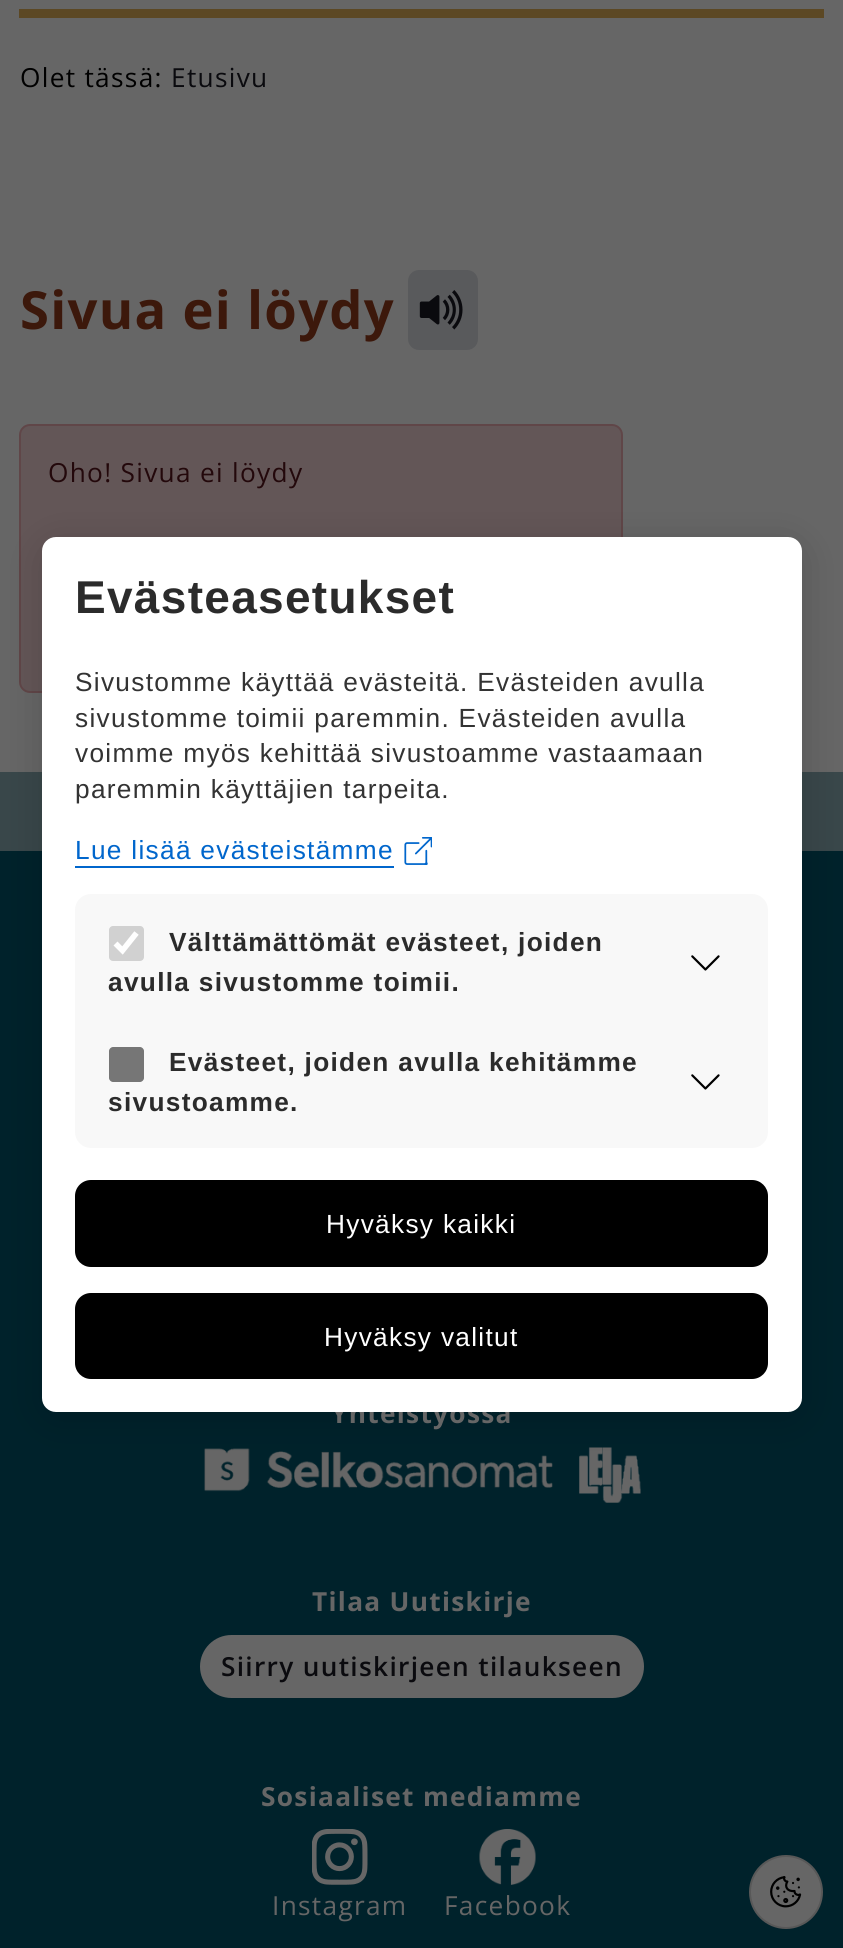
#include <cairo.h>
#include <math.h>
#include <stddef.h>

static cairo_t *ctx;

static void ink(unsigned color) {
    cairo_set_source_rgb(ctx, (color >> 16) / 255.0, (color >> 8 & 255) / 255.0, (color & 255) / 255.0);
}

static void write_spaced(double x, double y, const char *s, double letter, double word) {
    cairo_move_to(ctx, x, y);
    while (*s) {
        char ch[5] = {0};
        int n = 0;
        do ch[n++] = *s++; while ((*s & 0xC0) == 0x80);
        cairo_show_text(ctx, ch);
        cairo_rel_move_to(ctx, letter + word * (*ch == ' '), 0);
    }
}

static void block(double x, double y, double w, double h, unsigned color) {
    ink(color);
    cairo_rectangle(ctx, x, y, w, h);
    cairo_fill(ctx);
}

static void round_path(double x, double y, double w, double h, double r) {
    cairo_new_sub_path(ctx);
    cairo_arc(ctx, x + w - r, y + h - r, r, 0, M_PI / 2);
    cairo_arc(ctx, x + r, y + h - r, r, M_PI / 2, M_PI);
    cairo_arc(ctx, x + r, y + r, r, M_PI, 1.5 * M_PI);
    cairo_arc(ctx, x + w - r, y + r, r, 1.5 * M_PI, 2 * M_PI);
    cairo_close_path(ctx);
}

static void blur_box(double x, double y, double w, double h, double r, double blur, double alpha) {
    cairo_push_group_with_content(ctx, CAIRO_CONTENT_ALPHA);
    cairo_set_operator(ctx, CAIRO_OPERATOR_SOURCE);
    for (int i = 15; i >= -15 && fmin(w, h) + blur * i / 3 > 0; i -= 2) {
        double e = blur * i / 6;
        cairo_set_source_rgba(ctx, 0, 0, 0, alpha * erfc((i - 1) / 8.5) / 2);
        round_path(x - e, y - e, w + 2 * e, h + 2 * e, fmax(0, fmin(r + e + blur * .6, fmin(w, h) / 2 + e)));
        cairo_fill(ctx);
    }
    cairo_pattern_t *soft = cairo_pop_group(ctx);
    cairo_mask(ctx, soft);
    cairo_pattern_destroy(soft);
}

static void paste(const char *path, double x, double y, double w, double h) {
    cairo_surface_t *image = cairo_image_surface_create_from_png(path);
    cairo_save(ctx);
    cairo_set_source_surface(ctx, image, x, y);
    cairo_rectangle(ctx, x, y, w, h);
    cairo_fill(ctx);
    cairo_restore(ctx);
    cairo_surface_destroy(image);
}

int main(void) {
    cairo_surface_t *surface = cairo_image_surface_create(CAIRO_FORMAT_RGB24, 843, 1948);
    ctx = cairo_create(surface);
    cairo_font_options_t *options = cairo_font_options_create();
    cairo_font_options_set_hint_metrics(options, CAIRO_HINT_METRICS_OFF);
    cairo_font_options_set_hint_style(options, CAIRO_HINT_STYLE_NONE);
    cairo_set_font_options(ctx, options);
    cairo_set_miter_limit(ctx, 4);
    ink(0x666666);
    cairo_paint(ctx);
    block(19, 9, 805, 9, 0x5c4824);
    cairo_select_font_face(ctx, "Open Sans", CAIRO_FONT_SLANT_NORMAL, CAIRO_FONT_WEIGHT_NORMAL);
    cairo_set_font_size(ctx, 26.25);
    ink(0x000000);
    write_spaced(20, 87, "Olet tässä:", 1.3, 0);
    ink(0x0a0a0e);
    write_spaced(171, 87, "Etusivu", 1.3, 0);
    cairo_select_font_face(ctx, "Open Sans", CAIRO_FONT_SLANT_NORMAL, CAIRO_FONT_WEIGHT_BOLD);
    cairo_set_font_size(ctx, 52.5);
    ink(0x3c180b);
    write_spaced(20, 329, "Sivua ei löydy", 1.3, 0);
    ink(0x595a5c);
    round_path(409, 271, 68, 78, 10);
    cairo_fill_preserve(ctx);
    cairo_stroke(ctx);
    paste("pic1.png", 419, 290, 44, 40);
    ink(0x635657);
    round_path(20, 425, 602, 267, 10);
    cairo_fill_preserve(ctx);
    ink(0x604648);
    cairo_stroke(ctx);
    cairo_select_font_face(ctx, "Open Sans", CAIRO_FONT_SLANT_NORMAL, CAIRO_FONT_WEIGHT_NORMAL);
    cairo_set_font_size(ctx, 26.25);
    ink(0x23080b);
    write_spaced(48, 482, "Oho! Sivua ei löydy", 1.3, 0);
    block(0, 851, 843, 1097, 0x00222b);
    block(0, 772, 843, 79, 0x39474a);
    paste("pic4.png", 204, 1448, 349, 44);
    paste("pic5.png", 579, 1447, 62, 56);
    ink(0x000000);
    blur_box(42, 544, 760, 875, 14, 21, 0.15);
    cairo_select_font_face(ctx, "Open Sans", CAIRO_FONT_SLANT_NORMAL, CAIRO_FONT_WEIGHT_BOLD);
    ink(0x666666);
    write_spaced(331, 1423, "Yhteistyössä", 1.3, 0);
    ink(0xffffff);
    round_path(42, 537, 760, 875, 14);
    cairo_fill(ctx);
    cairo_select_font_face(ctx, "Liberation Sans", CAIRO_FONT_SLANT_NORMAL, CAIRO_FONT_WEIGHT_BOLD);
    cairo_set_font_size(ctx, 46);
    ink(0x2b2b2b);
    write_spaced(75, 613, "Evästeasetukset", 1.3, 0);
    cairo_select_font_face(ctx, "Liberation Sans", CAIRO_FONT_SLANT_NORMAL, CAIRO_FONT_WEIGHT_NORMAL);
    cairo_set_font_size(ctx, 26.25);
    ink(0x333333);
    write_spaced(75, 691, "Sivustomme käyttää evästeitä. Evästeiden avulla", 1.3, 0);
    write_spaced(75, 727, "sivustomme toimii paremmin. Evästeiden avulla", 1.3, 0);
    write_spaced(75, 762, "voimme myös kehittää sivustoamme vastaamaan", 1.3, 0);
    write_spaced(75, 798, "paremmin käyttäjien tarpeita.", 1.3, 0);
    ink(0x0066cc);
    write_spaced(75, 859, "Lue lisää evästeistämme", 1.3, 0);
    block(75, 866, 319, 2, 0x0066cc);
    paste("pic2.png", 404, 837, 28, 28);
    ink(0xf8f8f8);
    round_path(75, 894, 693, 254, 16);
    cairo_fill(ctx);
    ink(0xd1d1d1);
    round_path(109, 926, 35, 35, 4);
    cairo_fill(ctx);
    cairo_new_path(ctx);
    cairo_move_to(ctx, 115.5, 943.5);
    cairo_line_to(ctx, 122.5, 950.5);
    cairo_line_to(ctx, 136.5, 933);
    ink(0xffffff);
    cairo_set_line_width(ctx, 5.6);
    cairo_stroke(ctx);
    cairo_select_font_face(ctx, "Liberation Sans", CAIRO_FONT_SLANT_NORMAL, CAIRO_FONT_WEIGHT_BOLD);
    ink(0x2b2b2b);
    write_spaced(169, 951, "Välttämättömät evästeet, joiden", 1.3, 0);
    write_spaced(108, 991, "avulla sivustomme toimii.", 1.3, 0);
    paste("pic3.png", 691, 955, 29, 16);
    ink(0x767676);
    cairo_new_path(ctx);
    cairo_move_to(ctx, 113, 1047);
    cairo_line_to(ctx, 140, 1047);
    cairo_curve_to(ctx, 142, 1047, 144, 1049, 144, 1051);
    cairo_line_to(ctx, 144, 1078);
    cairo_curve_to(ctx, 144, 1080, 142, 1082, 140, 1082);
    cairo_line_to(ctx, 113, 1082);
    cairo_curve_to(ctx, 111, 1082, 109, 1080, 109, 1078);
    cairo_line_to(ctx, 109, 1051);
    cairo_curve_to(ctx, 109, 1049, 111, 1047, 113, 1047);
    cairo_close_path(ctx);
    cairo_fill(ctx);
    ink(0x2b2b2b);
    write_spaced(169, 1071, "Evästeet, joiden avulla kehitämme", 1.3, 0);
    write_spaced(108, 1111, "sivustoamme.", 1.3, 0);
    paste("pic3.png", 691, 1074, 29, 16);
    ink(0x000000);
    round_path(75, 1180, 693, 87, 16);
    cairo_fill(ctx);
    cairo_select_font_face(ctx, "Liberation Sans", CAIRO_FONT_SLANT_NORMAL, CAIRO_FONT_WEIGHT_NORMAL);
    ink(0xffffff);
    write_spaced(326, 1233, "Hyväksy kaikki", 1.3, 0);
    ink(0x000000);
    round_path(75, 1293, 693, 86, 16);
    cairo_fill(ctx);
    ink(0xffffff);
    write_spaced(324, 1346, "Hyväksy valitut", 1.3, 0);
    cairo_select_font_face(ctx, "Open Sans", CAIRO_FONT_SLANT_NORMAL, CAIRO_FONT_WEIGHT_BOLD);
    ink(0x666666);
    write_spaced(312, 1611, "Tilaa Uutiskirje", 1.3, 0);
    round_path(200, 1635, 444, 63, 31.5);
    cairo_fill(ctx);
    cairo_select_font_face(ctx, "Open Sans SemiBold", CAIRO_FONT_SLANT_NORMAL, CAIRO_FONT_WEIGHT_NORMAL);
    ink(0x0a0a0e);
    write_spaced(221, 1676, "Siirry uutiskirjeen tilaukseen", 1.3, 0);
    cairo_select_font_face(ctx, "Open Sans", CAIRO_FONT_SLANT_NORMAL, CAIRO_FONT_WEIGHT_BOLD);
    ink(0x666666);
    write_spaced(261, 1806, "Sosiaaliset mediamme", 1.3, 0);
    paste("pic6.png", 312, 1829, 56, 56);
    cairo_select_font_face(ctx, "Open Sans", CAIRO_FONT_SLANT_NORMAL, CAIRO_FONT_WEIGHT_NORMAL);
    write_spaced(272, 1915, "Instagram", 1.3, 0);
    paste("pic7.png", 479, 1829, 57, 56);
    write_spaced(444, 1915, "Facebook", 1.3, 0);
    cairo_new_path(ctx);
    cairo_arc(ctx, 786, 1892, 36, 0, 2 * M_PI);
    cairo_fill_preserve(ctx);
    ink(0x585858);
    cairo_set_line_width(ctx, 2);
    cairo_stroke(ctx);
    paste("pic8.png", 770, 1876, 32, 32);
    cairo_surface_write_to_png(surface, "screenshot.png");
    cairo_font_options_destroy(options);
    cairo_destroy(ctx);
    cairo_surface_destroy(surface);
    return 0;
}
